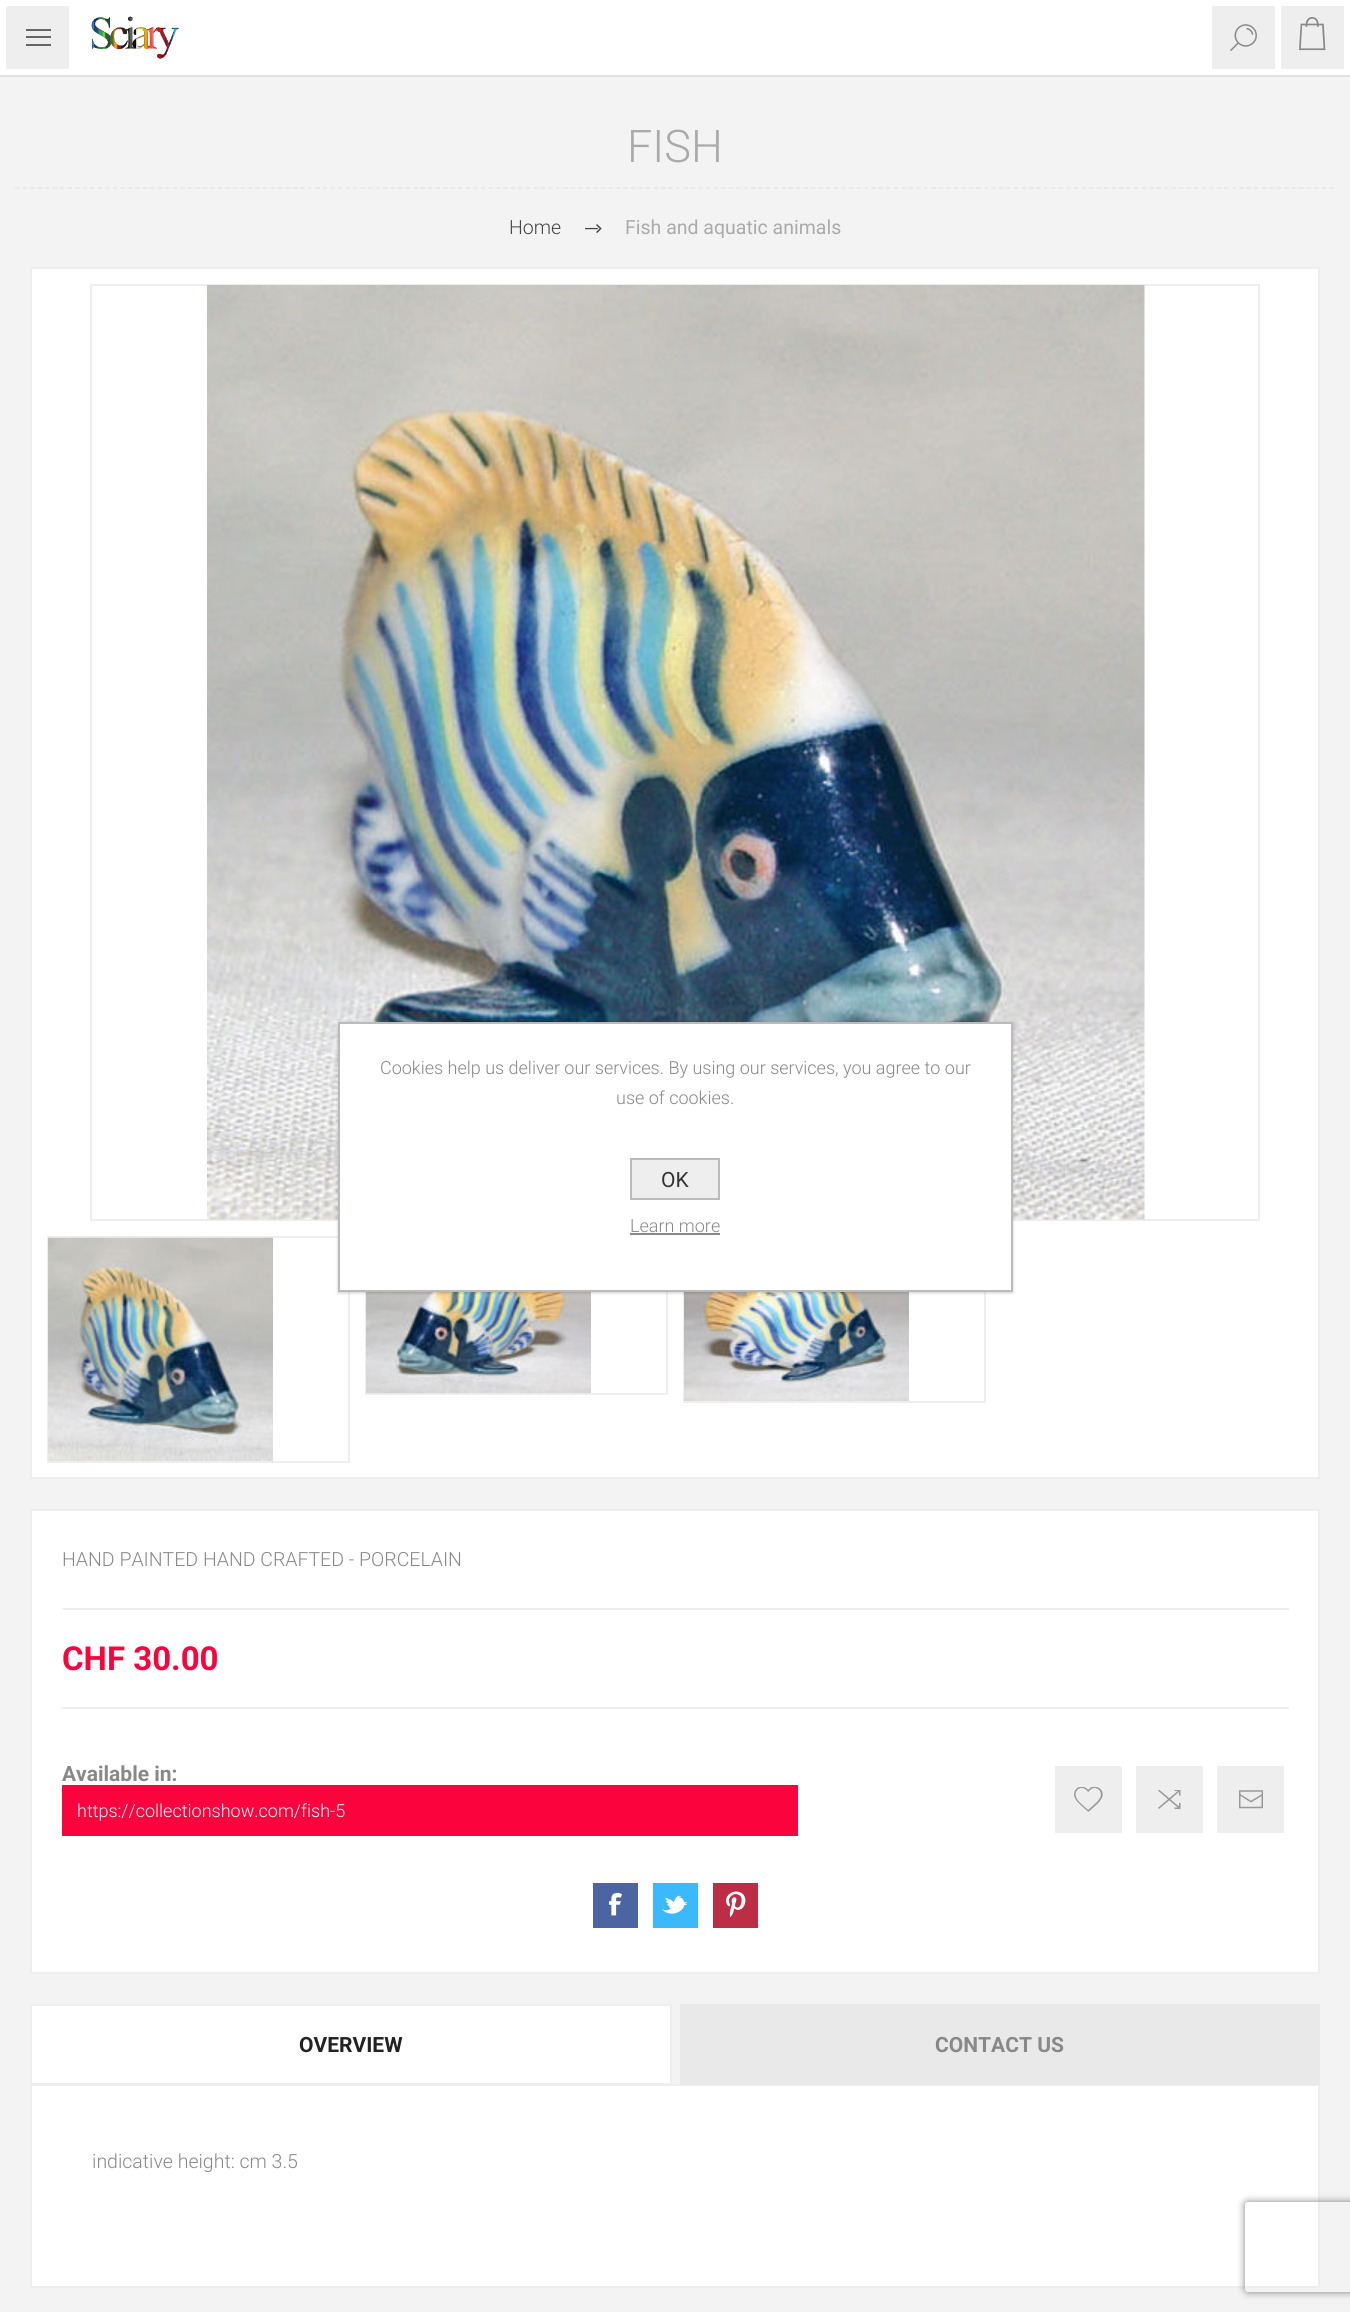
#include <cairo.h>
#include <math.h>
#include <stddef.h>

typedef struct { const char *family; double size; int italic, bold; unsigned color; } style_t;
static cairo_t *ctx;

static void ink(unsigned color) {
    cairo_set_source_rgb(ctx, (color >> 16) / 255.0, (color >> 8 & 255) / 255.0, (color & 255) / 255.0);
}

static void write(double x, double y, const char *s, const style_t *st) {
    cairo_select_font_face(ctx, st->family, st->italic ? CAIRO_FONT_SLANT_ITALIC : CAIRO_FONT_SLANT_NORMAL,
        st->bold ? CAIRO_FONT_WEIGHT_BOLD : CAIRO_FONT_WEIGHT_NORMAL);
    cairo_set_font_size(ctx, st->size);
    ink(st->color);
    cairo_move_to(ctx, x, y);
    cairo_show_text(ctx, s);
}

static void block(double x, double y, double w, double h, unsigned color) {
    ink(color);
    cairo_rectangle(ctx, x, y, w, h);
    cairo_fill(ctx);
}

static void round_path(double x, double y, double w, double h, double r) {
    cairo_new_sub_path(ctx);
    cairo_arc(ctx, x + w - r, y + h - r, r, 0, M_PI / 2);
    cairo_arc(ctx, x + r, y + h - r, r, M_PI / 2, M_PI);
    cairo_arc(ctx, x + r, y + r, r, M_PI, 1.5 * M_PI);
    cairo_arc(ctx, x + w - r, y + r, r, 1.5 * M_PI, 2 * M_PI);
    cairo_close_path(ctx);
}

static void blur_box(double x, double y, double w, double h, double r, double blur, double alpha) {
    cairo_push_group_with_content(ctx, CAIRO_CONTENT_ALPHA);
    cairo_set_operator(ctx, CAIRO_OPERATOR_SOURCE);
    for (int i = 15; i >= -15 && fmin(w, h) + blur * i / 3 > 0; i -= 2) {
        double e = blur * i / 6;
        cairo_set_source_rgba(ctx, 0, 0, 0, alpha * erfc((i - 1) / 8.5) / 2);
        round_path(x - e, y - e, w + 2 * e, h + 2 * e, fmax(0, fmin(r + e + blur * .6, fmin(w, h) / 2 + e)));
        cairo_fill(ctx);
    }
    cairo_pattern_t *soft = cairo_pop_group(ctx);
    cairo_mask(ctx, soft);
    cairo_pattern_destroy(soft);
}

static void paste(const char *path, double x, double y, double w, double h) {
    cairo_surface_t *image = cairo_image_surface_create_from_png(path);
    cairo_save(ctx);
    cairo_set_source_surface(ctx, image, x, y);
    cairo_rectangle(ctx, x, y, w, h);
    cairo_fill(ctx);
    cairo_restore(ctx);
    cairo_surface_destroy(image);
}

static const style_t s1 = {"Roboto Light", 45, 0, 0, 0xaaaaaa};
static const style_t s2 = {"Roboto Light", 19.5, 0, 0, 0x444444};
static const style_t s3 = {"Roboto", 19.5, 0, 0, 0xaaaaaa};
static const style_t s4 = {"Roboto Light", 19.5, 0, 0, 0x888888};
static const style_t s5 = {"Roboto", 33, 0, 1, 0xfb043d};
static const style_t s6 = {"Roboto", 21, 0, 1, 0x888888};
static const style_t s7 = {"Roboto Light", 18, 0, 0, 0xffffff};
static const style_t s8 = {"Roboto", 21, 0, 1, 0x222222};
static const style_t s9 = {"Roboto Light", 18, 0, 0, 0x888888};
static const style_t s10 = {"Roboto", 21, 0, 0, 0x333333};

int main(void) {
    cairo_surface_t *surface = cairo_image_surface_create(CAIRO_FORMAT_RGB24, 1350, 2312);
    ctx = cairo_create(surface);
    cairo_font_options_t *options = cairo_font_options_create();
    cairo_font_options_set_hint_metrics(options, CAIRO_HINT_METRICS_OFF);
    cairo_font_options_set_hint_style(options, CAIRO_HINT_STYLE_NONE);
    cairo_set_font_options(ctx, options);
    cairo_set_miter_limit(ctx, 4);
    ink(0xf3f3f3);
    cairo_paint(ctx);
    block(0, 75, 1350, 2, 0xe3e3e3);
    block(75, 0, 1200, 75, 0xffffff);
    paste("pic1.png", 91, 16, 88, 43);
    block(1212, 6, 63, 63, 0xeeeeee);
    paste("pic2.png", 1230, 24, 27, 27);
    cairo_rectangle(ctx, 3, 3, 69, 69);
    cairo_fill_preserve(ctx);
    ink(0xffffff);
    cairo_set_line_width(ctx, 6);
    cairo_stroke(ctx);
    block(26, 29, 25, 2, 0x666666);
    block(26, 36, 25, 2, 0x666666);
    block(26, 44, 25, 2, 0x666666);
    ink(0xeeeeee);
    cairo_rectangle(ctx, 1278, 3, 69, 69);
    cairo_fill_preserve(ctx);
    ink(0xffffff);
    cairo_stroke(ctx);
    paste("pic3.png", 1299, 17, 27, 34);
    cairo_new_path(ctx);
    cairo_move_to(ctx, 15, 188);
    cairo_line_to(ctx, 1335, 188);
    ink(0xe6e6e6);
    cairo_set_line_width(ctx, 1.5);
    cairo_set_dash(ctx, (double[]){4.5, 3.01}, 2, 0);
    cairo_stroke(ctx);
    write(627, 162, "FISH", &s1);
    write(509, 234, "Home", &s2);
    paste("pic4.png", 585, 224, 17, 9);
    write(625, 234, "Fish and aquatic animals", &s3);
    ink(0xffffff);
    cairo_rectangle(ctx, 31, 268, 1288, 1210);
    cairo_fill_preserve(ctx);
    ink(0xeeeeee);
    cairo_set_line_width(ctx, 2);
    cairo_set_dash(ctx, NULL, 0, 0);
    cairo_stroke(ctx);
    cairo_rectangle(ctx, 91, 285, 1168, 935);
    cairo_stroke(ctx);
    paste("pic5.png", 207, 285, 938, 935);
    cairo_rectangle(ctx, 48, 1237, 301, 225);
    cairo_stroke(ctx);
    paste("pic6.png", 48, 1237, 225, 224);
    cairo_rectangle(ctx, 366, 1237, 301, 157);
    cairo_stroke(ctx);
    paste("pic7.png", 366, 1292, 225, 102);
    cairo_rectangle(ctx, 684, 1237, 301, 165);
    cairo_stroke(ctx);
    paste("pic8.png", 684, 1292, 225, 109);
    ink(0xffffff);
    cairo_rectangle(ctx, 31, 1510, 1288, 463);
    cairo_fill_preserve(ctx);
    ink(0xeeeeee);
    cairo_stroke(ctx);
    block(62, 1608, 1227, 2, 0xeeeeee);
    write(62, 1566, "HAND PAINTED HAND CRAFTED - PORCELAIN", &s4);
    block(62, 1707, 1227, 2, 0xeeeeee);
    write(62, 1670, "CHF 30.00", &s5);
    write(62, 1781, "Available in:", &s6);
    block(1055, 1766, 67, 67, 0xeeeeee);
    paste("pic9.png", 1074, 1787, 29, 25);
    block(1136, 1766, 67, 67, 0xeeeeee);
    paste("pic10.png", 1158, 1790, 23, 19);
    block(1217, 1766, 67, 67, 0xeeeeee);
    paste("pic11.png", 1239, 1790, 24, 19);
    block(62, 1785, 736, 51, 0xfb043d);
    write(77, 1817, "https://collectionshow.com/fish-5", &s7);
    block(593, 1883, 45, 45, 0x4a65a2);
    paste("pic12.png", 609, 1892, 13, 24);
    block(653, 1883, 45, 45, 0x3abafd);
    paste("pic13.png", 661, 1895, 27, 19);
    block(713, 1883, 45, 45, 0xbd2d45);
    paste("pic14.png", 726, 1891, 20, 26);
    ink(0xffffff);
    cairo_rectangle(ctx, 31, 2085, 1288, 202);
    cairo_fill_preserve(ctx);
    ink(0xeeeeee);
    cairo_stroke(ctx);
    ink(0xffffff);
    cairo_rectangle(ctx, 31, 2005, 640, 79);
    cairo_fill_preserve(ctx);
    ink(0xeeeeee);
    cairo_stroke(ctx);
    write(299, 2052, "OVERVIEW", &s8);
    block(680, 2004, 640, 81, 0xe9e9e9);
    write(935, 2052, "CONTACT US", &s6);
    write(92, 2168, "indicative height: cm 3.5", &s4);
    ink(0x000000);
    blur_box(338, 1023, 675, 270, 0, 1.5, 0.2);
    ink(0xffffff);
    cairo_rectangle(ctx, 339, 1023, 673, 268);
    cairo_fill_preserve(ctx);
    ink(0xbbbbbb);
    cairo_stroke(ctx);
    write(380, 1074, "Cookies help us deliver our services. By using our services, you agree to our", &s9);
    write(616, 1104, "use of cookies.", &s9);
    ink(0xeeeeee);
    cairo_rectangle(ctx, 631, 1159, 88, 40);
    cairo_fill_preserve(ctx);
    ink(0xbbbbbb);
    cairo_stroke(ctx);
    write(661, 1187, "OK", &s10);
    write(630, 1232, "Learn more", &s9);
    block(630, 1233, 90, 2, 0x888888);
    cairo_save(ctx);
    cairo_set_fill_rule(ctx, CAIRO_FILL_RULE_EVEN_ODD);
    cairo_new_path(ctx);
    cairo_move_to(ctx, 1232, 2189);
    cairo_line_to(ctx, 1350, 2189);
    cairo_line_to(ctx, 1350, 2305);
    cairo_line_to(ctx, 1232, 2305);
    cairo_close_path(ctx);
    cairo_move_to(ctx, 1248, 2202);
    cairo_line_to(ctx, 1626, 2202);
    cairo_curve_to(ctx, 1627.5, 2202, 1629, 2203.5, 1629, 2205);
    cairo_line_to(ctx, 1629, 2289);
    cairo_curve_to(ctx, 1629, 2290.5, 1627.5, 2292, 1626, 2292);
    cairo_line_to(ctx, 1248, 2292);
    cairo_curve_to(ctx, 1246.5, 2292, 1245, 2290.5, 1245, 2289);
    cairo_line_to(ctx, 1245, 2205);
    cairo_curve_to(ctx, 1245, 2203.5, 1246.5, 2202, 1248, 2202);
    cairo_close_path(ctx);
    cairo_clip(ctx);
    ink(0x808080);
    blur_box(1245, 2202, 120, 90, 3, 4, 1);
    cairo_restore(ctx);
    cairo_surface_write_to_png(surface, "screenshot.png");
    cairo_font_options_destroy(options);
    cairo_destroy(ctx);
    cairo_surface_destroy(surface);
    return 0;
}
